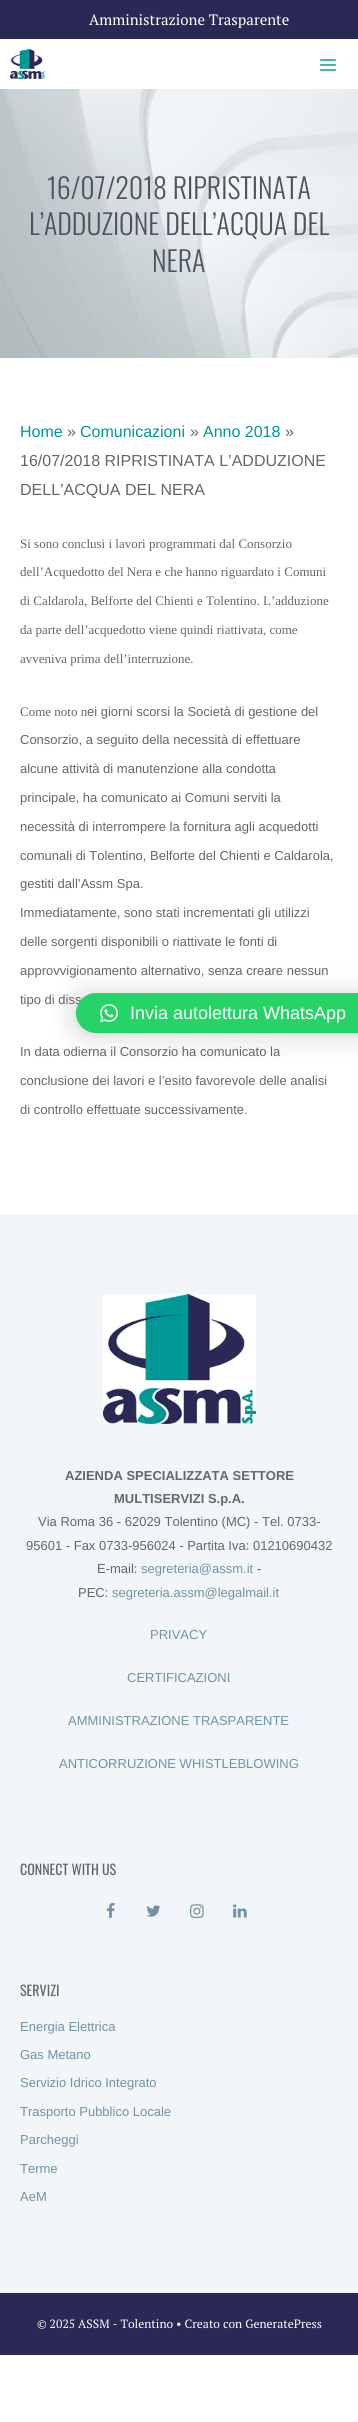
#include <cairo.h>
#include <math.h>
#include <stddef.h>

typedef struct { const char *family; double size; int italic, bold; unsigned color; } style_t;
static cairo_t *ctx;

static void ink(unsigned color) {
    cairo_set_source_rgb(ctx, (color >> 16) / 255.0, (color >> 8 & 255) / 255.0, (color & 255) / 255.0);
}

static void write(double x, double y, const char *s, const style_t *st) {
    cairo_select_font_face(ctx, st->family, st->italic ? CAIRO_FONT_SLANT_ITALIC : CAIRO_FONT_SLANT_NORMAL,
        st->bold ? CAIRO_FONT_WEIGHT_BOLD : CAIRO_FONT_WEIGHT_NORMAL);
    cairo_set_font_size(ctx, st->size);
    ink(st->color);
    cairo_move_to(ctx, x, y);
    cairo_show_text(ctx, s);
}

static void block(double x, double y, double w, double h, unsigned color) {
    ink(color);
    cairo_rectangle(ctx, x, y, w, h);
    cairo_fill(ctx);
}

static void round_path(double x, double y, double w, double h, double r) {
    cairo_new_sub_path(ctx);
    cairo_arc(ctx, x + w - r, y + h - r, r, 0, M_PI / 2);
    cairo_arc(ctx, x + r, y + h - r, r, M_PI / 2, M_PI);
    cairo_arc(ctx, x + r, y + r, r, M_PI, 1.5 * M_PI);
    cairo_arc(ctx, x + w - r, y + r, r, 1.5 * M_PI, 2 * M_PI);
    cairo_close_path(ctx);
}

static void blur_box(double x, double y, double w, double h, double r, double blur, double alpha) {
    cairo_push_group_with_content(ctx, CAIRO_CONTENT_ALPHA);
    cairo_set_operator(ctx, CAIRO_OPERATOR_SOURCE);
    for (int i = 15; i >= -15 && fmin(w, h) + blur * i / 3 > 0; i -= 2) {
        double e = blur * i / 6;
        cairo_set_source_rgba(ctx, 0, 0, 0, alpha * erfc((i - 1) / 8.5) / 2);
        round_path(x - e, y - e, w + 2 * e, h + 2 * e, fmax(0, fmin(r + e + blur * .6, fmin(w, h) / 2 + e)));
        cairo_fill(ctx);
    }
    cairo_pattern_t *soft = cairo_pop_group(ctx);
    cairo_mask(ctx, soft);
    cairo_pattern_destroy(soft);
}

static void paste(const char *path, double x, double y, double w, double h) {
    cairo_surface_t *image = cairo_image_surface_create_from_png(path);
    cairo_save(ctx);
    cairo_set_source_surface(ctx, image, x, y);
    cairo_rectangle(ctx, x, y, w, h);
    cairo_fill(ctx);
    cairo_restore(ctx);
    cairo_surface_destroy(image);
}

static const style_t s1 = {"PT Serif", 15, 0, 0, 0xffffff};
static const style_t s2 = {"Oswald Light", 28, 0, 0, 0x4d535e};
static const style_t s3 = {"Liberation Sans", 16, 0, 0, 0x009795};
static const style_t s4 = {"Liberation Sans", 16, 0, 0, 0x666666};
static const style_t s5 = {"Liberation Serif", 13, 0, 0, 0x666666};
static const style_t s6 = {"Liberation Sans", 13, 0, 0, 0x666666};
static const style_t s7 = {"Liberation Sans", 18, 0, 0, 0xffffff};
static const style_t s8 = {"Liberation Sans", 13, 0, 1, 0x666666};
static const style_t s9 = {"Liberation Sans", 13, 0, 0, 0x7092a5};
static const style_t s10 = {"Oswald", 14, 0, 0, 0x666666};
static const style_t s11 = {"PT Serif", 12, 0, 0, 0xffffff};

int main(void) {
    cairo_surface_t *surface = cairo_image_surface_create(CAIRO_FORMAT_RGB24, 358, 2422);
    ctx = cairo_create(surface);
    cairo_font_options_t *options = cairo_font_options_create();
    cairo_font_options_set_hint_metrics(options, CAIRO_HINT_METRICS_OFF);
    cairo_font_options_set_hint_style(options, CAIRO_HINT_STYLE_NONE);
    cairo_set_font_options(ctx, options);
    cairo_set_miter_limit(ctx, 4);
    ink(0xffffff);
    cairo_paint(ctx);
    block(0, 0, 358, 39, 0x2a2956);
    write(89, 25, "Amministrazione Trasparente", &s1);
    paste("pic1.png", 10, 49, 35, 30);
    paste("pic2.png", 320, 59, 16, 12);
    paste("pic3.png", 0, 89, 358, 269);
    write(47, 199, "16/07/2018 RIPRISTINATA", &s2);
    write(29, 235, "L’ADDUZIONE DELL’ACQUA DEL", &s2);
    write(152, 272, "NERA", &s2);
    write(20, 437, "Home", &s3);
    write(67, 437, "»", &s4);
    write(80, 437, "Comunicazioni", &s3);
    write(190, 437, "»", &s4);
    write(203, 437, "Anno 2018", &s3);
    write(285, 437, "»", &s4);
    write(20, 466, "16/07/2018 RIPRISTINATA L’ADDUZIONE", &s4);
    write(20, 495, "DELL’ACQUA DEL NERA", &s4);
    write(20, 548, "Si sono conclusi i lavori programmati dal Consorzio", &s5);
    write(20, 576, "dell’Acquedotto del Nera e che hanno riguardato i Comuni", &s5);
    write(20, 605, "di Caldarola, Belforte del Chienti e Tolentino. L’adduzione", &s5);
    write(20, 634, "da parte dell’acquedotto viene quindi riattivata, come", &s5);
    write(20, 663, "avveniva prima dell’interruzione.", &s5);
    write(20, 716, "Come noto n", &s5);
    write(87, 716, "ei giorni scorsi la Società di gestione del", &s6);
    write(20, 744, "Consorzio, a seguito della necessità di effettuare", &s6);
    write(20, 773, "alcune attività di manutenzione alla condotta", &s6);
    write(20, 802, "principale, ha comunicato ai Comuni serviti la", &s6);
    write(20, 831, "necessità di interrompere la fornitura agli acquedotti", &s6);
    write(20, 860, "comunali di Tolentino, Belforte del Chienti e Caldarola,", &s6);
    write(20, 888, "gestiti dall’Assm Spa.", &s6);
    write(20, 917, "Immediatamente, sono stati incrementati gli utilizzi", &s6);
    write(20, 946, "delle sorgenti disponibili o riattivate le fonti di", &s6);
    write(20, 975, "approvvigionamento alternativo, senza creare nessun", &s6);
    write(20, 1004, "tipo di diss", &s6);
    write(20, 1056, "In data odierna il Consorzio ha comunicato la", &s6);
    write(20, 1085, "conclusione dei lavori e l’esito favorevole delle analisi", &s6);
    write(20, 1114, "di controllo effettuate successivamente.", &s6);
    ink(0x000000);
    blur_box(76, 995, 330, 40, 20, 16, 0.16);
    blur_box(76, 994, 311, 40, 20, 3, 0.06);
    ink(0x25d366);
    round_path(76, 993, 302, 40, 20);
    cairo_fill(ctx);
    paste("pic4.png", 100, 1004, 18, 19);
    write(130, 1019, "Invia autolettura WhatsApp", &s7);
    block(0, 1214, 358, 1079, 0xf2f6f9);
    paste("pic5.png", 103, 1294, 153, 130);
    write(65, 1480, "AZIENDA SPECIALIZZATA SETTORE", &s8);
    write(114, 1503, "MULTISERVIZI S.p.A.", &s8);
    write(38, 1526, "Via Roma 36 - 62029 Tolentino (MC) - Tel. 0733-", &s6);
    write(26, 1550, "95601 - Fax 0733-956024 - Partita Iva: 01210690432", &s6);
    write(97, 1573, "E-mail:", &s6);
    write(141, 1573, "segreteria@assm.it", &s9);
    write(257, 1573, "-", &s6);
    write(78, 1597, "PEC:", &s6);
    write(112, 1597, "segreteria.assm@legalmail.it", &s9);
    write(150, 1639, "PRIVACY", &s9);
    write(127, 1682, "CERTIFICAZIONI", &s9);
    write(68, 1725, "AMMINISTRAZIONE TRASPARENTE", &s9);
    write(59, 1768, "ANTICORRUZIONE WHISTLEBLOWING", &s9);
    write(20, 1875, "CONNECT WITH US", &s10);
    paste("pic6.png", 106, 1903, 9, 15);
    paste("pic7.png", 146, 1905, 15, 12);
    paste("pic8.png", 190, 1904, 14, 14);
    paste("pic9.png", 233, 1904, 14, 14);
    write(20, 1996, "SERVIZI", &s10);
    write(20, 2031, "Energia Elettrica", &s9);
    write(20, 2059, "Gas Metano", &s9);
    write(20, 2087, "Servizio Idrico Integrato", &s9);
    write(20, 2116, "Trasporto Pubblico Locale", &s9);
    write(20, 2144, "Parcheggi", &s9);
    write(20, 2173, "Terme", &s9);
    write(20, 2201, "AeM", &s9);
    block(0, 2293, 358, 62, 0x2a2956);
    write(37, 2328, "© 2025 ASSM - Tolentino • Creato con GeneratePress", &s11);
    cairo_surface_write_to_png(surface, "screenshot.png");
    cairo_font_options_destroy(options);
    cairo_destroy(ctx);
    cairo_surface_destroy(surface);
    return 0;
}
